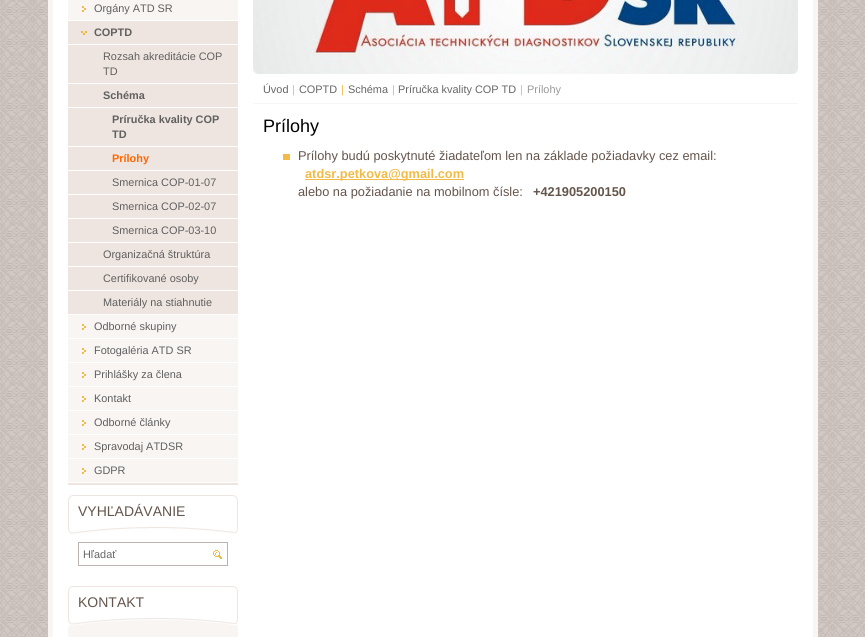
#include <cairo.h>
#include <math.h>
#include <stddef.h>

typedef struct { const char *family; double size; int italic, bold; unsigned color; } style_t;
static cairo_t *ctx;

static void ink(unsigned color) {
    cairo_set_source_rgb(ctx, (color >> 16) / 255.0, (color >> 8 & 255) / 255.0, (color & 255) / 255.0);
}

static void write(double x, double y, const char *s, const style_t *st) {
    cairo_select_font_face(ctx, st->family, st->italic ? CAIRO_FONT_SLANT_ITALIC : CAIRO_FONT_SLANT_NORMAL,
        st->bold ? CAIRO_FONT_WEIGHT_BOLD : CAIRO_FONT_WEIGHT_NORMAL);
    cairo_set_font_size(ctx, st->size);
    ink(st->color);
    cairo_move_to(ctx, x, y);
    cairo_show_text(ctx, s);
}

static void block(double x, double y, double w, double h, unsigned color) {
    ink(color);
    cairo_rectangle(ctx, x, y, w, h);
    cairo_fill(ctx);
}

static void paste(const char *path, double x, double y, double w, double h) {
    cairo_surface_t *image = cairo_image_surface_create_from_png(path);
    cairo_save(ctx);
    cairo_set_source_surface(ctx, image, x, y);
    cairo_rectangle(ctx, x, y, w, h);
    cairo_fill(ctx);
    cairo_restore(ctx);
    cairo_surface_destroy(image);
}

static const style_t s1 = {"Liberation Sans", 10.9, 0, 0, 0x606060};
static const style_t s2 = {"Liberation Sans", 10.9, 0, 1, 0x606060};
static const style_t s3 = {"Liberation Sans", 10.9, 0, 1, 0xff6600};
static const style_t s4 = {"Liberation Sans", 14, 0, 0, 0x64554b};
static const style_t s5 = {"Liberation Sans", 10.9, 0, 0, 0x666666};
static const style_t s6 = {"Liberation Sans", 10.9, 0, 0, 0xf1bb46};
static const style_t s7 = {"Liberation Sans", 10.9, 0, 0, 0x999999};
static const style_t s8 = {"Liberation Sans", 18, 0, 0, 0x000000};
static const style_t s9 = {"Liberation Sans", 12.8, 0, 0, 0x64554b};
static const style_t s10 = {"Liberation Sans", 12.8, 0, 1, 0xf1bb46};
static const style_t s11 = {"Liberation Sans", 12.8, 0, 1, 0x64554b};

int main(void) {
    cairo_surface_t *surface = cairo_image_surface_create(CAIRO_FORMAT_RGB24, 865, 637);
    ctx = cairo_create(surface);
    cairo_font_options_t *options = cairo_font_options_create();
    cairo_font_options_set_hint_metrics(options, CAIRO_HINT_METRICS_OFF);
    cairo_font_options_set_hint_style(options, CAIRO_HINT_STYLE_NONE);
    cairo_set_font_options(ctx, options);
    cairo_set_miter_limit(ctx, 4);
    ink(0xffffff);
    cairo_paint(ctx);
    paste("pic1.png", 0, 0, 865, 637);
    block(53, 0, 760, 637, 0xffffff);
    block(813, 0, 5, 637, 0xf8f5f3);
    block(48, 0, 5, 637, 0xf8f5f3);
    block(68, 483, 170, 2, 0xeee5e0);
    block(68, 0, 170, 482, 0xf8f5f3);
    paste("pic2.png", 82, 6, 4, 6);
    block(68, 20, 170, 1, 0xffffff);
    write(94, 12, "Orgány ATD SR", &s1);
    block(68, 21, 170, 293, 0xeee5e0);
    paste("pic3.png", 81, 31, 6, 4);
    block(68, 44, 170, 1, 0xffffff);
    write(94, 36, "COPTD", &s2);
    block(68, 83, 170, 1, 0xffffff);
    write(103, 60, "Rozsah akreditácie COP", &s1);
    write(103, 75, "TD", &s1);
    block(68, 107, 170, 1, 0xffffff);
    write(103, 99, "Schéma", &s2);
    block(68, 146, 170, 1, 0xffffff);
    write(112, 123, "Príručka kvality COP", &s2);
    write(112, 138, "TD", &s2);
    block(68, 170, 170, 1, 0xffffff);
    write(112, 162, "Prílohy", &s3);
    block(68, 194, 170, 1, 0xffffff);
    write(112, 186, "Smernica COP-01-07", &s1);
    block(68, 218, 170, 1, 0xffffff);
    write(112, 210, "Smernica COP-02-07", &s1);
    block(68, 242, 170, 1, 0xffffff);
    write(112, 234, "Smernica COP-03-10", &s1);
    block(68, 266, 170, 1, 0xffffff);
    write(103, 258, "Organizačná štruktúra", &s1);
    block(68, 290, 170, 1, 0xffffff);
    write(103, 282, "Certifikované osoby", &s1);
    block(68, 314, 170, 1, 0xffffff);
    write(103, 306, "Materiály na stiahnutie", &s1);
    paste("pic2.png", 82, 324, 4, 6);
    block(68, 338, 170, 1, 0xffffff);
    write(94, 330, "Odborné skupiny", &s1);
    paste("pic2.png", 82, 348, 4, 6);
    block(68, 362, 170, 1, 0xffffff);
    write(94, 354, "Fotogaléria ATD SR", &s1);
    paste("pic2.png", 82, 372, 4, 6);
    block(68, 386, 170, 1, 0xffffff);
    write(94, 378, "Prihlášky za člena", &s1);
    paste("pic2.png", 82, 396, 4, 6);
    block(68, 410, 170, 1, 0xffffff);
    write(94, 402, "Kontakt", &s1);
    paste("pic2.png", 82, 420, 4, 6);
    block(68, 434, 170, 1, 0xffffff);
    write(94, 426, "Odborné články", &s1);
    paste("pic2.png", 82, 444, 4, 6);
    block(68, 458, 170, 1, 0xffffff);
    write(94, 450, "Spravodaj ATDSR", &s1);
    paste("pic2.png", 82, 468, 4, 6);
    write(94, 474, "GDPR", &s1);
    paste("pic4.png", 68, 495, 170, 32);
    paste("pic5.png", 68, 527, 170, 8);
    write(78, 516, "VYHĽADÁVANIE", &s4);
    cairo_rectangle(ctx, 78.5, 542.5, 149, 23);
    ink(0xbab3af);
    cairo_set_line_width(ctx, 1);
    cairo_stroke(ctx);
    write(83, 558, "Hľadať", &s5);
    paste("pic6.png", 213, 550, 9, 9);
    block(68, 626, 170, 11, 0xf8f5f3);
    paste("pic4.png", 68, 586, 170, 32);
    paste("pic7.png", 68, 618, 170, 8);
    write(78, 607, "KONTAKT", &s4);
    paste("pic8.png", 253, 0, 545, 74);
    paste("pic9.png", 253, 69, 545, 5);
    block(253, 103, 545, 1, 0xf8f5f3);
    write(263, 93, "Úvod", &s5);
    write(292, 93, "|", &s6);
    write(299, 93, "COPTD", &s5);
    write(341, 93, "|", &s6);
    write(348, 93, "Schéma", &s5);
    write(392, 93, "|", &s6);
    write(398, 93, "Príručka kvality COP TD", &s5);
    write(520, 93, "|", &s6);
    write(527, 93, "Prílohy", &s7);
    write(263, 132, "Prílohy", &s8);
    block(283, 154, 7, 6, 0xf1bb46);
    write(298, 160, "Prílohy budú poskytnuté žiadateľom len na základe požiadavky cez email:", &s9);
    block(305, 179, 159, 1, 0xf1bb46);
    write(305, 178, "atdsr.petkova@gmail.com", &s10);
    write(298, 196, "alebo na požiadanie na mobilnom čísle:", &s9);
    write(533, 196, "+421905200150", &s11);
    cairo_surface_write_to_png(surface, "screenshot.png");
    cairo_font_options_destroy(options);
    cairo_destroy(ctx);
    cairo_surface_destroy(surface);
    return 0;
}
